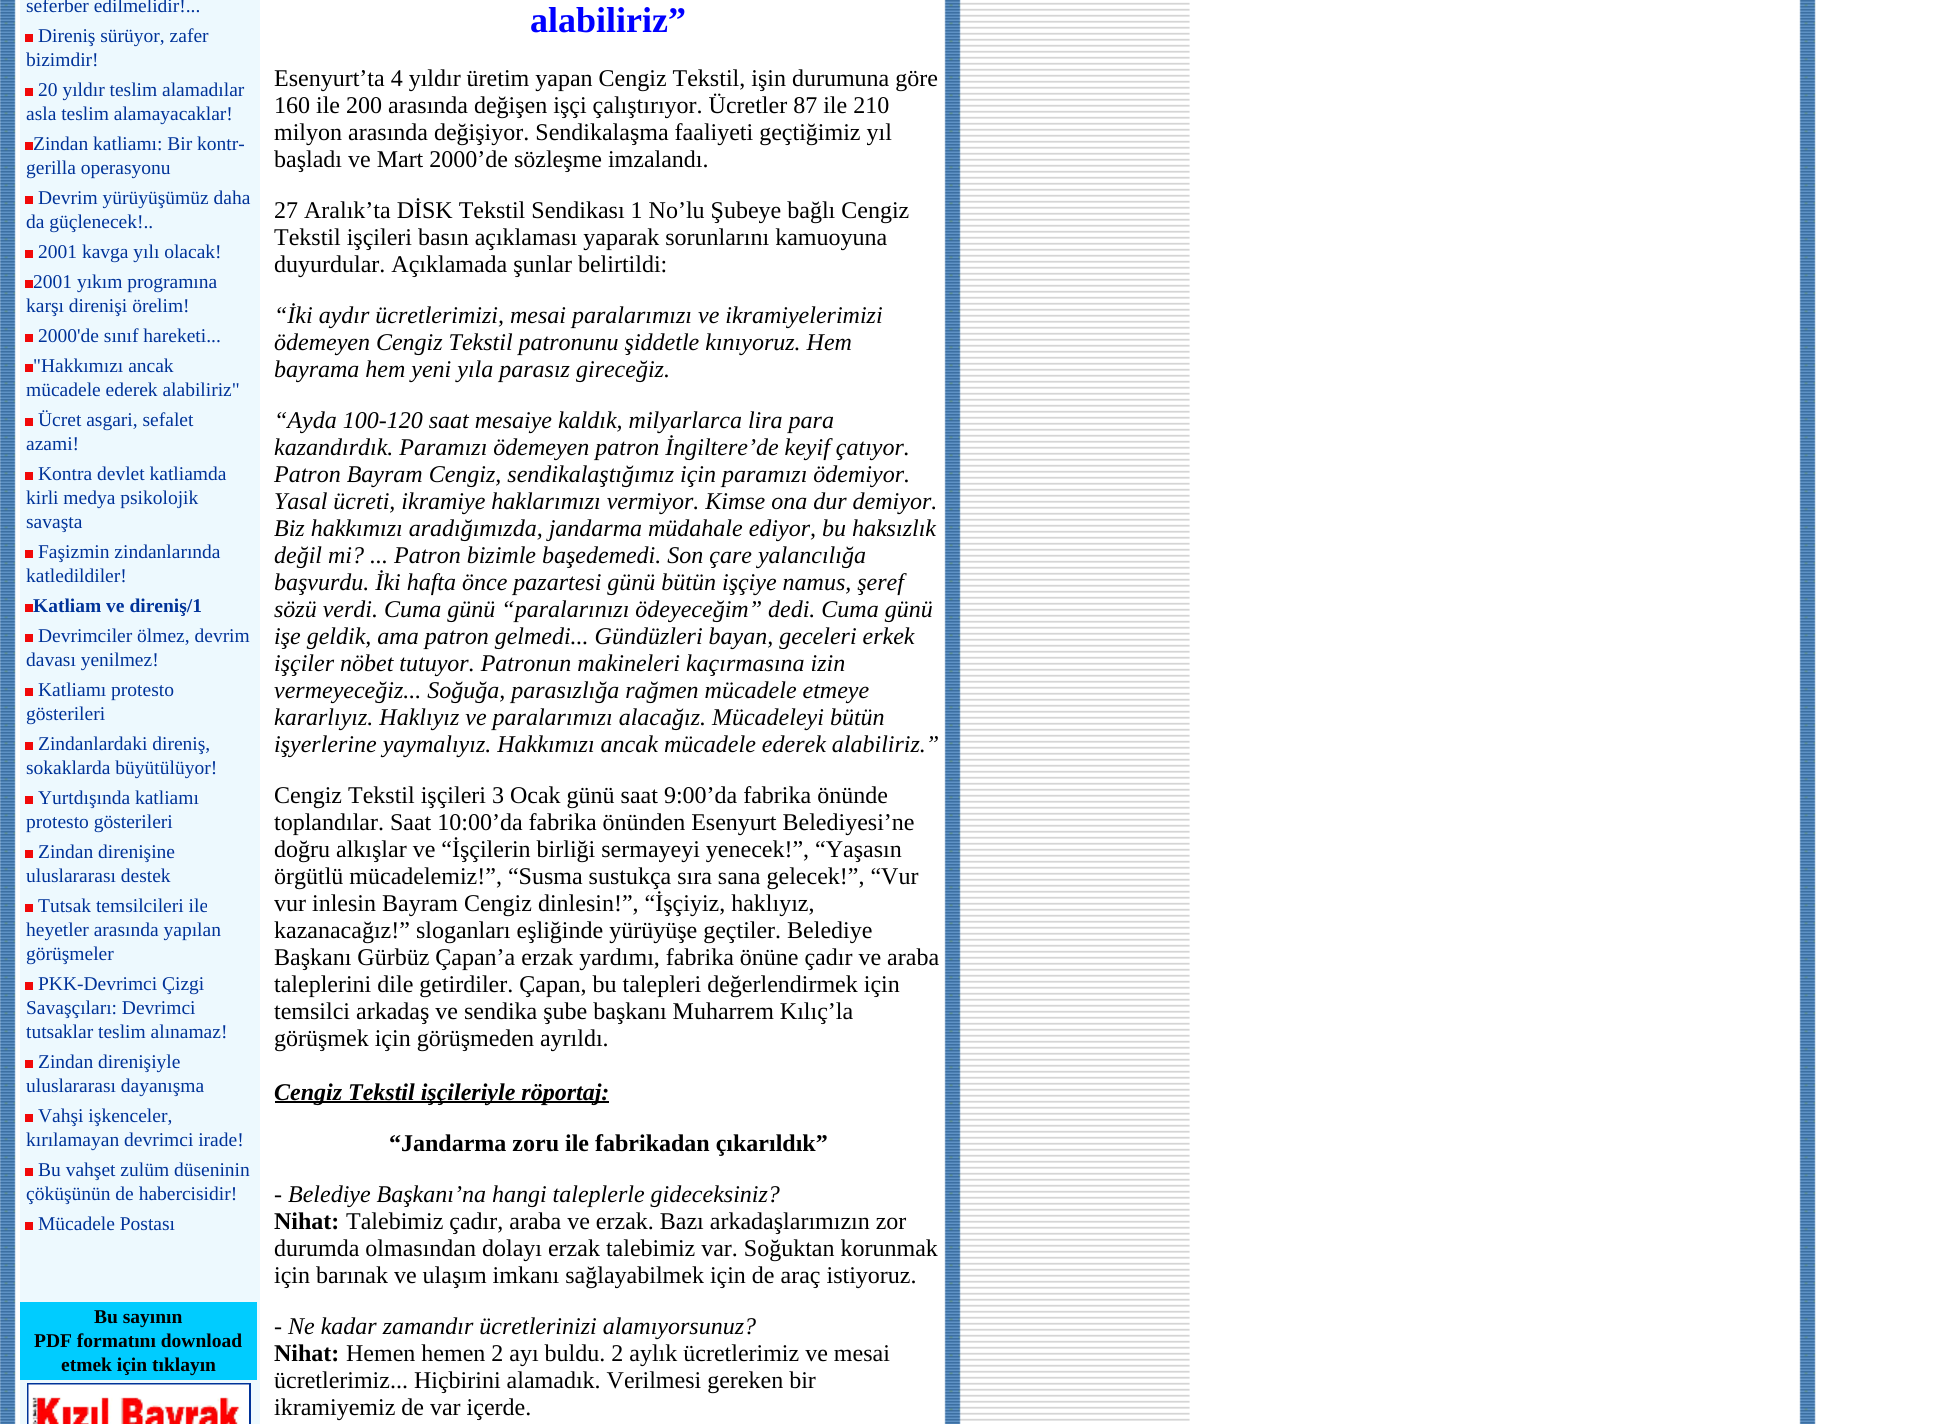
#include <cairo.h>
#include <math.h>
#include <stddef.h>

typedef struct { const char *family; double size; int italic, bold; unsigned color; } style_t;
static cairo_t *ctx;

static void ink(unsigned color) {
    cairo_set_source_rgb(ctx, (color >> 16) / 255.0, (color >> 8 & 255) / 255.0, (color & 255) / 255.0);
}

static void write(double x, double y, const char *s, const style_t *st) {
    cairo_select_font_face(ctx, st->family, st->italic ? CAIRO_FONT_SLANT_ITALIC : CAIRO_FONT_SLANT_NORMAL,
        st->bold ? CAIRO_FONT_WEIGHT_BOLD : CAIRO_FONT_WEIGHT_NORMAL);
    cairo_set_font_size(ctx, st->size);
    ink(st->color);
    cairo_move_to(ctx, x, y);
    cairo_show_text(ctx, s);
}

static void block(double x, double y, double w, double h, unsigned color) {
    ink(color);
    cairo_rectangle(ctx, x, y, w, h);
    cairo_fill(ctx);
}

static void paste(const char *path, double x, double y, double w, double h) {
    cairo_surface_t *image = cairo_image_surface_create_from_png(path);
    cairo_save(ctx);
    cairo_set_source_surface(ctx, image, x, y);
    cairo_rectangle(ctx, x, y, w, h);
    cairo_fill(ctx);
    cairo_restore(ctx);
    cairo_surface_destroy(image);
}

static const style_t s1 = {"Liberation Serif", 19.5, 0, 0, 0x003399};
static const style_t s2 = {"Liberation Serif", 19.5, 0, 1, 0x003399};
static const style_t s3 = {"Liberation Serif", 19.5, 0, 1, 0x000000};
static const style_t s4 = {"Liberation Serif", 36, 0, 1, 0x0000ff};
static const style_t s5 = {"Liberation Serif", 24, 0, 0, 0x000000};
static const style_t s6 = {"Liberation Serif", 24, 1, 0, 0x000000};
static const style_t s7 = {"Liberation Serif", 24, 1, 1, 0x000000};
static const style_t s8 = {"Liberation Serif", 24, 0, 1, 0x000000};

int main(void) {
    cairo_surface_t *surface = cairo_image_surface_create(CAIRO_FORMAT_RGB24, 1941, 1424);
    ctx = cairo_create(surface);
    cairo_font_options_t *options = cairo_font_options_create();
    cairo_font_options_set_hint_metrics(options, CAIRO_HINT_METRICS_OFF);
    cairo_font_options_set_hint_style(options, CAIRO_HINT_STYLE_NONE);
    cairo_set_font_options(ctx, options);
    cairo_set_miter_limit(ctx, 4);
    ink(0xffffff);
    cairo_paint(ctx);
    paste("pic1.png", 0, 0, 1816, 1424);
    block(20, 0, 240, 1424, 0xedf9fe);
    write(26, 12, "seferber edilmelidir!...", &s1);
    write(38, 42, "Direniş sürüyor, zafer", &s1);
    block(25, 34, 8, 8, 0xf10909);
    write(26, 66, "bizimdir!", &s1);
    write(38, 96, "20 yıldır teslim alamadılar", &s1);
    block(25, 88, 8, 8, 0xf10909);
    write(26, 120, "asla teslim alamayacaklar!", &s1);
    write(33, 150, "Zindan katliamı: Bir kontr-", &s1);
    block(25, 142, 8, 8, 0xf10909);
    write(26, 174, "gerilla operasyonu", &s1);
    write(38, 204, "Devrim yürüyüşümüz daha", &s1);
    block(25, 196, 8, 8, 0xf10909);
    write(26, 228, "da güçlenecek!..", &s1);
    write(38, 258, "2001 kavga yılı olacak!", &s1);
    block(25, 250, 8, 8, 0xf10909);
    write(33, 288, "2001 yıkım programına", &s1);
    block(25, 280, 8, 8, 0xf10909);
    write(26, 312, "karşı direnişi örelim!", &s1);
    write(38, 342, "2000'de sınıf hareketi...", &s1);
    block(25, 334, 8, 8, 0xf10909);
    write(33, 372, "\"Hakkımızı ancak", &s1);
    block(25, 364, 8, 8, 0xf10909);
    write(26, 396, "mücadele ederek alabiliriz\"", &s1);
    write(38, 426, "Ücret asgari, sefalet", &s1);
    block(25, 418, 8, 8, 0xf10909);
    write(26, 450, "azami!", &s1);
    write(38, 480, "Kontra devlet katliamda", &s1);
    block(25, 472, 8, 8, 0xf10909);
    write(26, 504, "kirli medya psikolojik", &s1);
    write(26, 528, "savaşta", &s1);
    write(38, 558, "Faşizmin zindanlarında", &s1);
    block(25, 550, 8, 8, 0xf10909);
    write(26, 582, "katledildiler!", &s1);
    write(33, 612, "Katliam ve direniş/1", &s2);
    block(25, 604, 8, 8, 0xf10909);
    write(38, 642, "Devrimciler ölmez, devrim", &s1);
    block(25, 634, 8, 8, 0xf10909);
    write(26, 666, "davası yenilmez!", &s1);
    write(38, 696, "Katliamı protesto", &s1);
    block(25, 688, 8, 8, 0xf10909);
    write(26, 720, "gösterileri", &s1);
    write(38, 750, "Zindanlardaki direniş,", &s1);
    block(25, 742, 8, 8, 0xf10909);
    write(26, 774, "sokaklarda büyütülüyor!", &s1);
    write(38, 804, "Yurtdışında katliamı", &s1);
    block(25, 796, 8, 8, 0xf10909);
    write(26, 828, "protesto gösterileri", &s1);
    write(38, 858, "Zindan direnişine", &s1);
    block(25, 850, 8, 8, 0xf10909);
    write(26, 882, "uluslararası destek", &s1);
    write(38, 912, "Tutsak temsilcileri ile", &s1);
    block(25, 904, 8, 8, 0xf10909);
    write(26, 936, "heyetler arasında yapılan", &s1);
    write(26, 960, "görüşmeler", &s1);
    write(38, 990, "PKK-Devrimci Çizgi", &s1);
    block(25, 982, 8, 8, 0xf10909);
    write(26, 1014, "Savaşçıları: Devrimci", &s1);
    write(26, 1038, "tutsaklar teslim alınamaz!", &s1);
    write(38, 1068, "Zindan direnişiyle", &s1);
    block(25, 1060, 8, 8, 0xf10909);
    write(26, 1092, "uluslararası dayanışma", &s1);
    write(38, 1122, "Vahşi işkenceler,", &s1);
    block(25, 1114, 8, 8, 0xf10909);
    write(26, 1146, "kırılamayan devrimci irade!", &s1);
    write(38, 1176, "Bu vahşet zulüm düseninin", &s1);
    block(25, 1168, 8, 8, 0xf10909);
    write(26, 1200, "çöküşünün de habercisidir!", &s1);
    write(38, 1230, "Mücadele Postası", &s1);
    block(25, 1222, 8, 8, 0xf10909);
    block(20, 1302, 237, 78, 0x00ccff);
    write(94, 1323, "Bu sayının", &s3);
    write(34, 1347, "PDF formatını download", &s3);
    write(61, 1371, "etmek için tıklayın", &s3);
    cairo_rectangle(ctx, 28, 1384, 222, 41);
    ink(0x003399);
    cairo_stroke(ctx);
    paste("pic2.png", 28, 1384, 221, 40);
    write(530, 32, "alabiliriz”", &s4);
    write(274, 86, "Esenyurt’ta 4 yıldır üretim yapan Cengiz Tekstil, işin durumuna göre", &s5);
    write(274, 113, "160 ile 200 arasında değişen işçi çalıştırıyor. Ücretler 87 ile 210", &s5);
    write(274, 140, "milyon arasında değişiyor. Sendikalaşma faaliyeti geçtiğimiz yıl", &s5);
    write(274, 167, "başladı ve Mart 2000’de sözleşme imzalandı.", &s5);
    write(274, 218, "27 Aralık’ta DİSK Tekstil Sendikası 1 No’lu Şubeye bağlı Cengiz", &s5);
    write(274, 245, "Tekstil işçileri basın açıklaması yaparak sorunlarını kamuoyuna", &s5);
    write(274, 272, "duyurdular. Açıklamada şunlar belirtildi:", &s5);
    write(274, 323, "“İki aydır ücretlerimizi, mesai paralarımızı ve ikramiyelerimizi", &s6);
    write(274, 350, "ödemeyen Cengiz Tekstil patronunu şiddetle kınıyoruz. Hem", &s6);
    write(274, 377, "bayrama hem yeni yıla parasız gireceğiz.", &s6);
    write(274, 428, "“Ayda 100-120 saat mesaiye kaldık, milyarlarca lira para", &s6);
    write(274, 455, "kazandırdık. Paramızı ödemeyen patron İngiltere’de keyif çatıyor.", &s6);
    write(274, 482, "Patron Bayram Cengiz, sendikalaştığımız için paramızı ödemiyor.", &s6);
    write(274, 509, "Yasal ücreti, ikramiye haklarımızı vermiyor. Kimse ona dur demiyor.", &s6);
    write(274, 536, "Biz hakkımızı aradığımızda, jandarma müdahale ediyor, bu haksızlık", &s6);
    write(274, 563, "değil mi? ... Patron bizimle başedemedi. Son çare yalancılığa", &s6);
    write(274, 590, "başvurdu. İki hafta önce pazartesi günü bütün işçiye namus, şeref", &s6);
    write(274, 617, "sözü verdi. Cuma günü “paralarınızı ödeyeceğim” dedi. Cuma günü", &s6);
    write(274, 644, "işe geldik, ama patron gelmedi... Gündüzleri bayan, geceleri erkek", &s6);
    write(274, 671, "işçiler nöbet tutuyor. Patronun makineleri kaçırmasına izin", &s6);
    write(274, 698, "vermeyeceğiz... Soğuğa, parasızlığa rağmen mücadele etmeye", &s6);
    write(274, 725, "kararlıyız. Haklıyız ve paralarımızı alacağız. Mücadeleyi bütün", &s6);
    write(274, 752, "işyerlerine yaymalıyız. Hakkımızı ancak mücadele ederek alabiliriz.”", &s6);
    write(274, 803, "Cengiz Tekstil işçileri 3 Ocak günü saat 9:00’da fabrika önünde", &s5);
    write(274, 830, "toplandılar. Saat 10:00’da fabrika önünden Esenyurt Belediyesi’ne", &s5);
    write(274, 857, "doğru alkışlar ve “İşçilerin birliği sermayeyi yenecek!”, “Yaşasın", &s5);
    write(274, 884, "örgütlü mücadelemiz!”, “Susma sustukça sıra sana gelecek!”, “Vur", &s5);
    write(274, 911, "vur inlesin Bayram Cengiz dinlesin!”, “İşçiyiz, haklıyız,", &s5);
    write(274, 938, "kazanacağız!” sloganları eşliğinde yürüyüşe geçtiler. Belediye", &s5);
    write(274, 965, "Başkanı Gürbüz Çapan’a erzak yardımı, fabrika önüne çadır ve araba", &s5);
    write(274, 992, "taleplerini dile getirdiler. Çapan, bu talepleri değerlendirmek için", &s5);
    write(274, 1019, "temsilci arkadaş ve sendika şube başkanı Muharrem Kılıç’la", &s5);
    write(274, 1046, "görüşmek için görüşmeden ayrıldı.", &s5);
    block(275, 1101, 334, 2, 0x000000);
    write(274, 1100, "Cengiz Tekstil işçileriyle röportaj:", &s7);
    write(389, 1151, "“Jandarma zoru ile fabrikadan çıkarıldık”", &s8);
    write(274, 1202, "- Belediye Başkanı’na hangi taleplerle gideceksiniz?", &s6);
    write(274, 1229, "Nihat:", &s8);
    write(346, 1229, "Talebimiz çadır, araba ve erzak. Bazı arkadaşlarımızın zor", &s5);
    write(274, 1256, "durumda olmasından dolayı erzak talebimiz var. Soğuktan korunmak", &s5);
    write(274, 1283, "için barınak ve ulaşım imkanı sağlayabilmek için de araç istiyoruz.", &s5);
    write(274, 1334, "- Ne kadar zamandır ücretlerinizi alamıyorsunuz?", &s6);
    write(274, 1361, "Nihat:", &s8);
    write(346, 1361, "Hemen hemen 2 ayı buldu. 2 aylık ücretlerimiz ve mesai", &s5);
    write(274, 1388, "ücretlerimiz... Hiçbirini alamadık. Verilmesi gereken bir", &s5);
    write(274, 1415, "ikramiyemiz de var içerde.", &s5);
    cairo_surface_write_to_png(surface, "screenshot.png");
    cairo_font_options_destroy(options);
    cairo_destroy(ctx);
    cairo_surface_destroy(surface);
    return 0;
}
